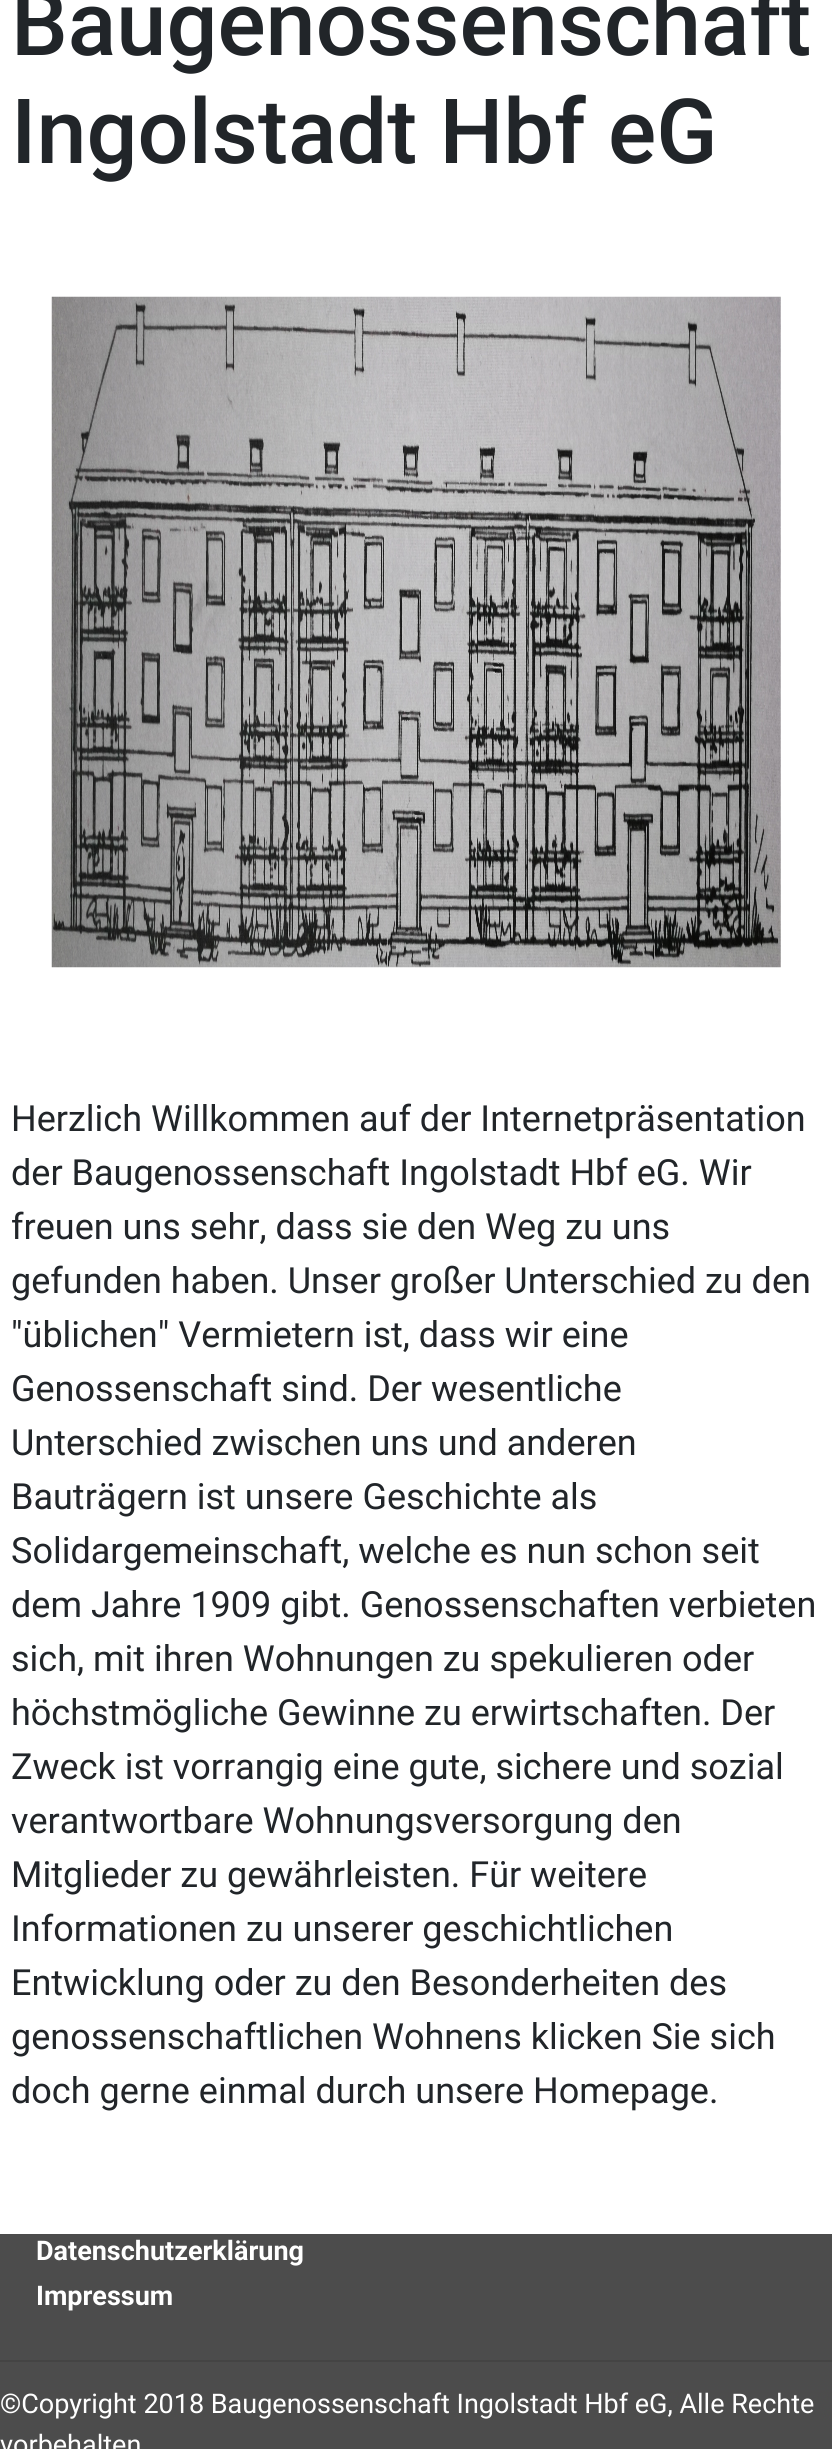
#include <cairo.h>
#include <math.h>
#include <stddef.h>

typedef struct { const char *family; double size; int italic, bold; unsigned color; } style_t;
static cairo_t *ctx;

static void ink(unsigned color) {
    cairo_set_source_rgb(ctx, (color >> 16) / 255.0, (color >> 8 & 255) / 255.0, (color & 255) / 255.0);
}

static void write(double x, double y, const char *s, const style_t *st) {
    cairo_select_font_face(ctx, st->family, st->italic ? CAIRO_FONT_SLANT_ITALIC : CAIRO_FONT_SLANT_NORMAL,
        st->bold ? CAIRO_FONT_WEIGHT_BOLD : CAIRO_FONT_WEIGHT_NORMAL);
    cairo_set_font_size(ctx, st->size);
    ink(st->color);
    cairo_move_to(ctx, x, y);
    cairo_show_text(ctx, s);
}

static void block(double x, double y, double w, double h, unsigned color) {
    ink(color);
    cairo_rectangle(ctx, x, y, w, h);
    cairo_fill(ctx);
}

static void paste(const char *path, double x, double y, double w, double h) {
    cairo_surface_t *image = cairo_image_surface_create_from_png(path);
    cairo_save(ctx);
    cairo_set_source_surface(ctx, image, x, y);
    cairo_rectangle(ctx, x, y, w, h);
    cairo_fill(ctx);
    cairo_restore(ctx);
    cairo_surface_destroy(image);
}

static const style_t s1 = {"Roboto Medium", 90, 0, 0, 0x212529};
static const style_t s2 = {"Roboto", 36, 0, 0, 0x212529};
static const style_t s3 = {"Roboto", 27, 0, 1, 0xffffff};
static const style_t s4 = {"Roboto", 27, 0, 0, 0xffffff};

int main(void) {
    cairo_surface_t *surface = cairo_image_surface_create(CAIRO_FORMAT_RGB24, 832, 2449);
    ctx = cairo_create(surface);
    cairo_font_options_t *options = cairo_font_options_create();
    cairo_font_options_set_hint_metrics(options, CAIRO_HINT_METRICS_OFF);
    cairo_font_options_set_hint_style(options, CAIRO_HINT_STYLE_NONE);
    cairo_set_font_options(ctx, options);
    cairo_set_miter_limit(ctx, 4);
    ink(0xffffff);
    cairo_paint(ctx);
    write(11, 55, "Baugenossenschaft", &s1);
    write(11, 163, "Ingolstadt Hbf eG", &s1);
    paste("pic1.png", 51, 296, 730, 672);
    write(11, 1131, "Herzlich Willkommen auf der Internetpräsentation", &s2);
    write(11, 1185, "der Baugenossenschaft Ingolstadt Hbf eG. Wir", &s2);
    write(11, 1239, "freuen uns sehr, dass sie den Weg zu uns", &s2);
    write(11, 1293, "gefunden haben. Unser großer Unterschied zu den", &s2);
    write(11, 1347, "\"üblichen\" Vermietern ist, dass wir eine", &s2);
    write(11, 1401, "Genossenschaft sind. Der wesentliche", &s2);
    write(11, 1455, "Unterschied zwischen uns und anderen", &s2);
    write(11, 1509, "Bauträgern ist unsere Geschichte als", &s2);
    write(11, 1563, "Solidargemeinschaft, welche es nun schon seit", &s2);
    write(11, 1617, "dem Jahre 1909 gibt. Genossenschaften verbieten", &s2);
    write(11, 1671, "sich, mit ihren Wohnungen zu spekulieren oder", &s2);
    write(11, 1725, "höchstmögliche Gewinne zu erwirtschaften. Der", &s2);
    write(11, 1779, "Zweck ist vorrangig eine gute, sichere und sozial", &s2);
    write(11, 1833, "verantwortbare Wohnungsversorgung den", &s2);
    write(11, 1887, "Mitglieder zu gewährleisten. Für weitere", &s2);
    write(11, 1941, "Informationen zu unserer geschichtlichen", &s2);
    write(11, 1995, "Entwicklung oder zu den Besonderheiten des", &s2);
    write(11, 2049, "genossenschaftlichen Wohnens klicken Sie sich", &s2);
    write(11, 2103, "doch gerne einmal durch unsere Homepage.", &s2);
    block(0, 2234, 832, 215, 0x4c4c4c);
    write(36, 2260, "Datenschutzerklärung", &s3);
    write(36, 2305, "Impressum", &s3);
    block(0, 2360, 832, 2, 0x444444);
    write(0, 2413, "©Copyright 2018 Baugenossenschaft Ingolstadt Hbf eG, Alle Rechte", &s4);
    write(0, 2454, "vorbehalten", &s4);
    cairo_surface_write_to_png(surface, "screenshot.png");
    cairo_font_options_destroy(options);
    cairo_destroy(ctx);
    cairo_surface_destroy(surface);
    return 0;
}
